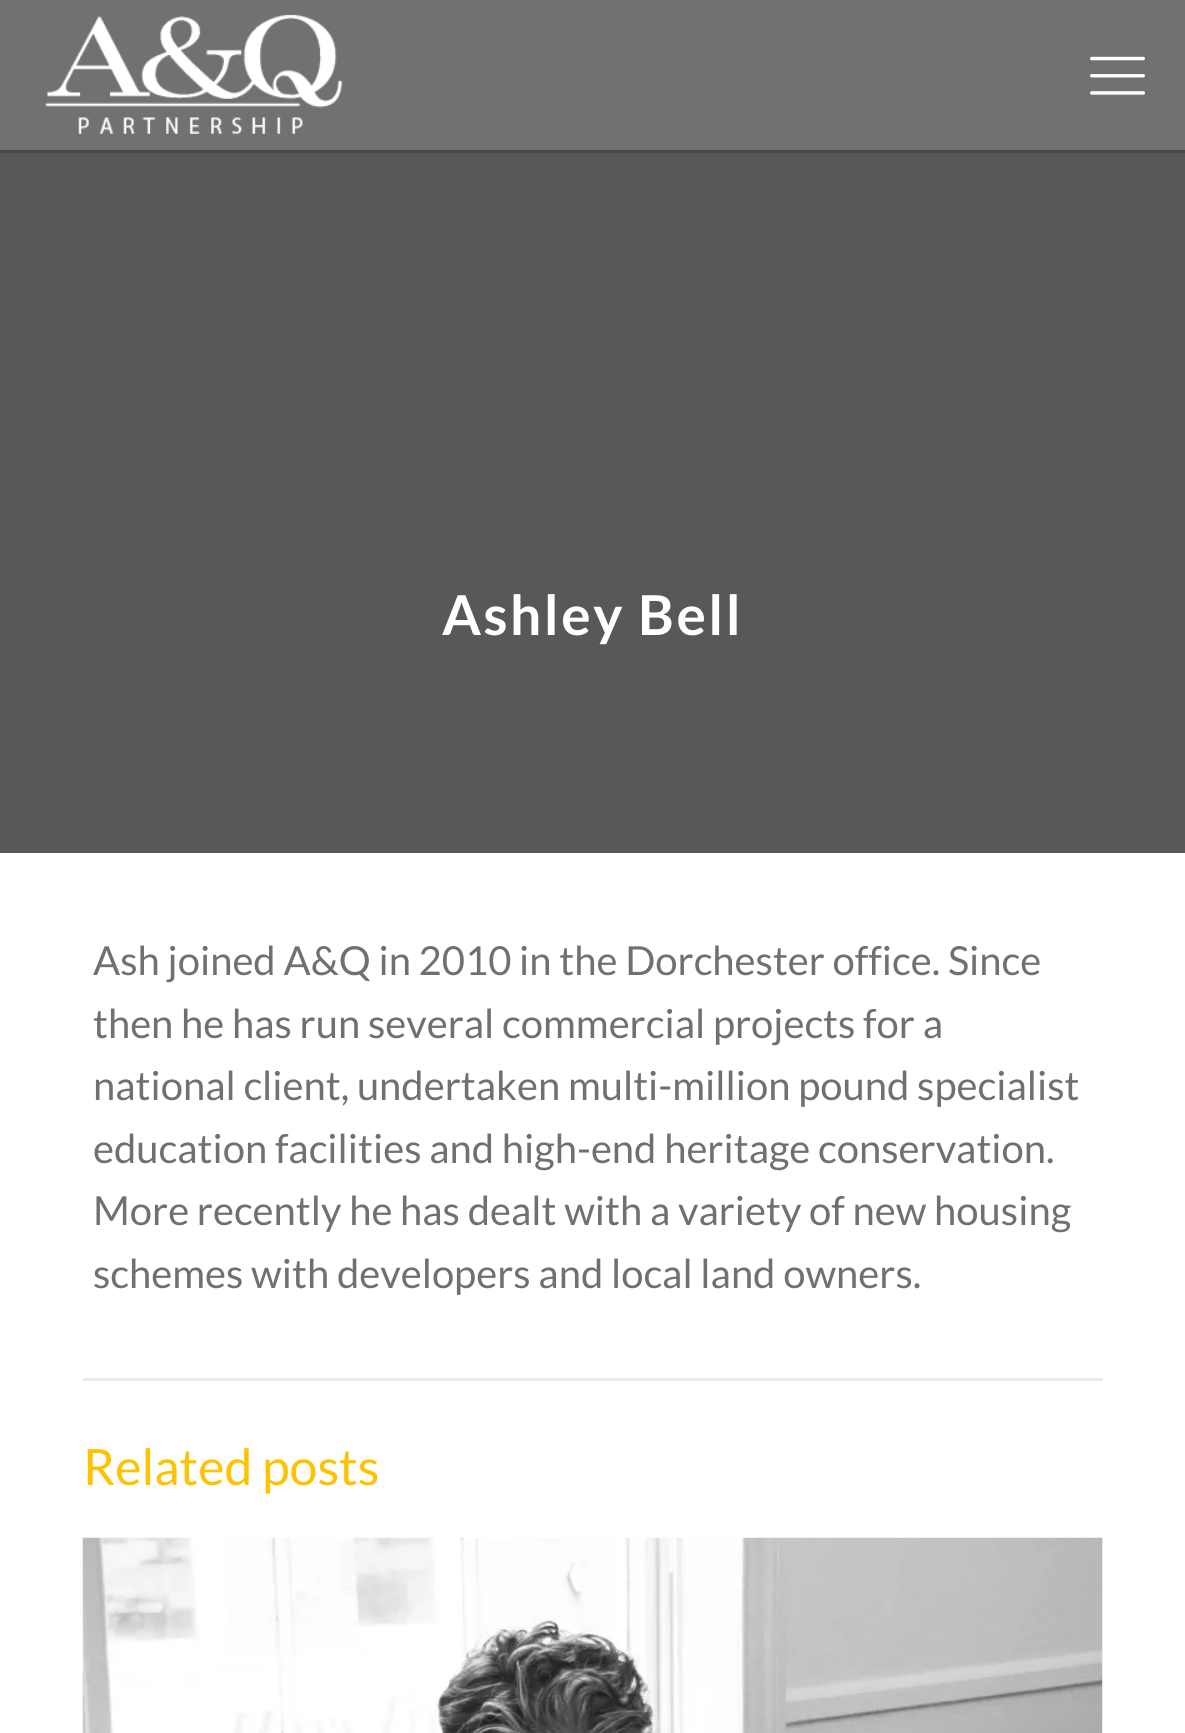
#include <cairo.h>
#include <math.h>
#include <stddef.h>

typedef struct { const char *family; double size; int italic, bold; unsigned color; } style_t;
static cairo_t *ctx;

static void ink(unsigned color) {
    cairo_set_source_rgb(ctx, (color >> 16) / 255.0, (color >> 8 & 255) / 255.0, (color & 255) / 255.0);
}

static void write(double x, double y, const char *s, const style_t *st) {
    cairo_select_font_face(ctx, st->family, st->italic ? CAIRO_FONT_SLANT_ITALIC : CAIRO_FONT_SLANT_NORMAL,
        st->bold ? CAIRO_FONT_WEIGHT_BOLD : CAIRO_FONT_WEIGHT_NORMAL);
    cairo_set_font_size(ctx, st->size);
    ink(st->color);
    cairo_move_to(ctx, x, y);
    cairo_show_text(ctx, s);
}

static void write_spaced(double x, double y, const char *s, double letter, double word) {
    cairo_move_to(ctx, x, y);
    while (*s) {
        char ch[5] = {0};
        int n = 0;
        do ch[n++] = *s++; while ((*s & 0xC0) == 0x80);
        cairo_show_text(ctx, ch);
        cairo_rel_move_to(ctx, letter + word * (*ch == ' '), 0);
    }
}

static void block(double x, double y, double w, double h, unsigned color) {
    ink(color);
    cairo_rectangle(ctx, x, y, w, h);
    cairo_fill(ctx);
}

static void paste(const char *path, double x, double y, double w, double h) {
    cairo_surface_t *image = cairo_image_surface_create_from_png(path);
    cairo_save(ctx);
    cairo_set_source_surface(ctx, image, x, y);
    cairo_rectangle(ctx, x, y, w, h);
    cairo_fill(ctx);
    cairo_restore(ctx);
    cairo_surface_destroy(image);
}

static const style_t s1 = {"Lato", 40, 0, 0, 0x707070};
static const style_t s2 = {"Lato", 50, 0, 0, 0xfdc300};

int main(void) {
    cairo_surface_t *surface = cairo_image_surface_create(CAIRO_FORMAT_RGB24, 1185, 1733);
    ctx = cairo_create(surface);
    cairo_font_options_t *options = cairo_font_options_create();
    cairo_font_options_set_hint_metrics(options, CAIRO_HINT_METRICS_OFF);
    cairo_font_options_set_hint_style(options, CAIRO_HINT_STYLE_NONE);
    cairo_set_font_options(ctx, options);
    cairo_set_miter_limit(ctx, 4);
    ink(0xffffff);
    cairo_paint(ctx);
    block(0, 0, 1185, 150, 0x717171);
    block(0, 150, 1185, 3, 0x494949);
    paste("pic1.png", 45, 14, 298, 120);
    paste("pic2.png", 1090, 56, 55, 39);
    block(0, 153, 1185, 700, 0x585857);
    cairo_select_font_face(ctx, "Lato", CAIRO_FONT_SLANT_NORMAL, CAIRO_FONT_WEIGHT_BOLD);
    cairo_set_font_size(ctx, 55);
    ink(0xffffff);
    write_spaced(442, 635, "Ashley Bell", 2.5, 0);
    write(93, 975, "Ash joined A&Q in 2010 in the Dorchester office. Since", &s1);
    write(93, 1038, "then he has run several commercial projects for a", &s1);
    write(93, 1100, "national client, undertaken multi-million pound specialist", &s1);
    write(93, 1163, "education facilities and high-end heritage conservation.", &s1);
    write(93, 1225, "More recently he has dealt with a variety of new housing", &s1);
    write(93, 1288, "schemes with developers and local land owners.", &s1);
    block(83, 1378, 1020, 3, 0xebebeb);
    write(83, 1485, "Related posts", &s2);
    paste("pic3.png", 82, 1537, 1021, 196);
    cairo_surface_write_to_png(surface, "screenshot.png");
    cairo_font_options_destroy(options);
    cairo_destroy(ctx);
    cairo_surface_destroy(surface);
    return 0;
}
